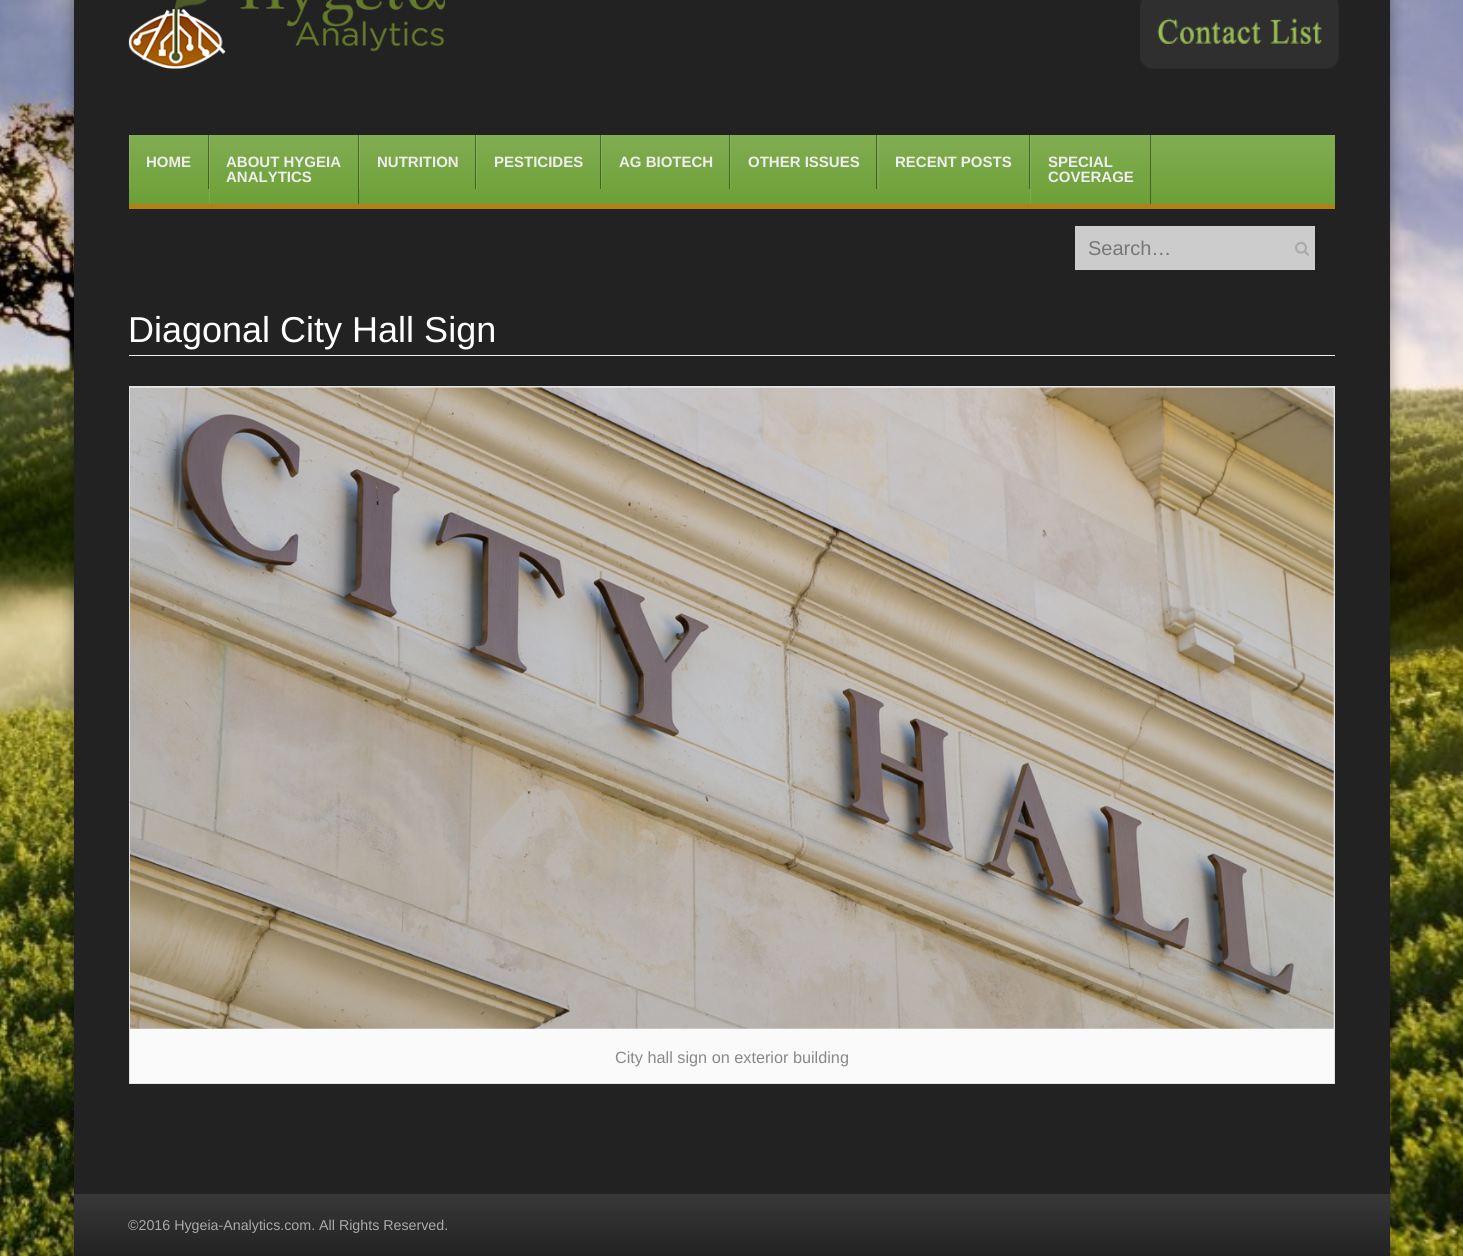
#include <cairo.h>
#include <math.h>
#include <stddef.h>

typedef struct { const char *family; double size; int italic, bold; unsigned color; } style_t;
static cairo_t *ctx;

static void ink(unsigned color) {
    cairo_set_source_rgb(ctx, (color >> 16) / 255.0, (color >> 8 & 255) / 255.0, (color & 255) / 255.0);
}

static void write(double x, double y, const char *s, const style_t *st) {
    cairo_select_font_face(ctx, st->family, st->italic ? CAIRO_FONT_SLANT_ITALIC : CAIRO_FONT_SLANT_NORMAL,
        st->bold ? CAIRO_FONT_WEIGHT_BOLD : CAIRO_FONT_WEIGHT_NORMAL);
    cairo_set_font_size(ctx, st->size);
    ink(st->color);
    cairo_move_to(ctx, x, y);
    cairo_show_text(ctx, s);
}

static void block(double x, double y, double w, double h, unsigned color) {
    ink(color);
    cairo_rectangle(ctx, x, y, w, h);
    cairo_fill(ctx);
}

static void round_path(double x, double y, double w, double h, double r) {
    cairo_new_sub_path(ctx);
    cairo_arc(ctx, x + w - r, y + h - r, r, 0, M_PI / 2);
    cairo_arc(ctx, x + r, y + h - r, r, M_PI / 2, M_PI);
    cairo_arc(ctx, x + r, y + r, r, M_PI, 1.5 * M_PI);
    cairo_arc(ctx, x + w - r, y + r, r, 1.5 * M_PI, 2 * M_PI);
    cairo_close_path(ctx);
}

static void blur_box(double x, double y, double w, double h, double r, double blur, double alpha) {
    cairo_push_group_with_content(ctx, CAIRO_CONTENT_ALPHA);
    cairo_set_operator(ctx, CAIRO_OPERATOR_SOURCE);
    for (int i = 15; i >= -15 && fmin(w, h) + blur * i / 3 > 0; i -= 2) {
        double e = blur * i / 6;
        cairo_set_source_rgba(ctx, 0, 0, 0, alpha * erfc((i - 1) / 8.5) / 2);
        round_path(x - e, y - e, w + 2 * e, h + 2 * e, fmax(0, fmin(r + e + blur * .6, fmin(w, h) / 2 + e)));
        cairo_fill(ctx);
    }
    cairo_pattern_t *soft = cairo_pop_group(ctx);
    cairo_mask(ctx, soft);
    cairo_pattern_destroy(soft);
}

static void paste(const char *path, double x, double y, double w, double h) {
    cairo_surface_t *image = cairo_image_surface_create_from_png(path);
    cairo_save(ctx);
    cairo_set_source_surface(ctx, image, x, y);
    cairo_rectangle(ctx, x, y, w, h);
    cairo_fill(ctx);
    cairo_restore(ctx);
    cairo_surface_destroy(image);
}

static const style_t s1 = {"Liberation Sans", 15, 0, 1, 0xeeeeee};
static const style_t s2 = {"Liberation Sans", 20, 0, 0, 0x777777};
static const style_t s3 = {"Liberation Sans", 36, 0, 0, 0xffffff};
static const style_t s4 = {"Liberation Sans", 16.25, 0, 0, 0x888888};
static const style_t s5 = {"Liberation Sans", 14.25, 0, 0, 0xaaaaaa};

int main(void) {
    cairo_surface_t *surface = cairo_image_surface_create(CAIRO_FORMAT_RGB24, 1463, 1256);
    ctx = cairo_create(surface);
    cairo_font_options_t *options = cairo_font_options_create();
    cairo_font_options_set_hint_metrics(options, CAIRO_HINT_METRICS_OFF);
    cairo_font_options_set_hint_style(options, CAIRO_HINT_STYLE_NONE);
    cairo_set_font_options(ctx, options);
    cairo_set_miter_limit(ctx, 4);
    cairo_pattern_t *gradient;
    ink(0xffffff);
    cairo_paint(ctx);
    paste("pic1.png", 0, 0, 1463, 1256);
    ink(0x000000);
    blur_box(74, -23, 1316, 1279, 0, 7.5, 0.4);
    block(74, 0, 1316, 1194, 0x222222);
    paste("pic2.png", 128, 0, 317, 69);
    paste("pic3.png", 1140, 0, 199, 69);
    gradient = cairo_pattern_create_linear(732, 135, 732, 204);
    cairo_pattern_add_color_stop_rgba(gradient, 0, 0.506, 0.678, 0.322, 1);
    cairo_pattern_add_color_stop_rgba(gradient, 1, 0.427, 0.627, 0.212, 1);
    cairo_set_source(ctx, gradient);
    cairo_pattern_destroy(gradient);
    cairo_rectangle(ctx, 129, 135, 1206, 69);
    cairo_fill(ctx);
    block(129, 204, 1206, 5, 0xaf8115);
    cairo_set_source_rgba(ctx, 0, 0, 0, 0.4);
    cairo_rectangle(ctx, 208, 135, 1, 54);
    cairo_fill(ctx);
    cairo_set_source_rgba(ctx, 1, 1, 1, 0.1);
    cairo_rectangle(ctx, 129, 135, 1, 54);
    cairo_fill(ctx);
    write(146, 167, "HOME", &s1);
    cairo_set_source_rgba(ctx, 0, 0, 0, 0.4);
    cairo_rectangle(ctx, 358, 135, 1, 69);
    cairo_fill(ctx);
    cairo_set_source_rgba(ctx, 1, 1, 1, 0.1);
    cairo_rectangle(ctx, 209, 135, 1, 69);
    cairo_fill(ctx);
    write(226, 167, "ABOUT HYGEIA", &s1);
    write(226, 182, "ANALYTICS", &s1);
    cairo_set_source_rgba(ctx, 0, 0, 0, 0.4);
    cairo_rectangle(ctx, 475, 135, 1, 54);
    cairo_fill(ctx);
    cairo_set_source_rgba(ctx, 1, 1, 1, 0.1);
    cairo_rectangle(ctx, 359, 135, 1, 54);
    cairo_fill(ctx);
    write(377, 167, "NUTRITION", &s1);
    cairo_set_source_rgba(ctx, 0, 0, 0, 0.4);
    cairo_rectangle(ctx, 600, 135, 1, 54);
    cairo_fill(ctx);
    cairo_set_source_rgba(ctx, 1, 1, 1, 0.1);
    cairo_rectangle(ctx, 476, 135, 1, 54);
    cairo_fill(ctx);
    write(494, 167, "PESTICIDES", &s1);
    cairo_set_source_rgba(ctx, 0, 0, 0, 0.4);
    cairo_rectangle(ctx, 729, 135, 1, 54);
    cairo_fill(ctx);
    cairo_set_source_rgba(ctx, 1, 1, 1, 0.1);
    cairo_rectangle(ctx, 601, 135, 1, 54);
    cairo_fill(ctx);
    write(619, 167, "AG BIOTECH", &s1);
    cairo_set_source_rgba(ctx, 0, 0, 0, 0.4);
    cairo_rectangle(ctx, 876, 135, 1, 54);
    cairo_fill(ctx);
    cairo_set_source_rgba(ctx, 1, 1, 1, 0.1);
    cairo_rectangle(ctx, 730, 135, 1, 54);
    cairo_fill(ctx);
    write(748, 167, "OTHER ISSUES", &s1);
    cairo_set_source_rgba(ctx, 0, 0, 0, 0.4);
    cairo_rectangle(ctx, 1029, 135, 1, 54);
    cairo_fill(ctx);
    cairo_set_source_rgba(ctx, 1, 1, 1, 0.1);
    cairo_rectangle(ctx, 878, 135, 1, 54);
    cairo_fill(ctx);
    write(895, 167, "RECENT POSTS", &s1);
    cairo_set_source_rgba(ctx, 0, 0, 0, 0.4);
    cairo_rectangle(ctx, 1150, 135, 1, 69);
    cairo_fill(ctx);
    cairo_set_source_rgba(ctx, 1, 1, 1, 0.1);
    cairo_rectangle(ctx, 1030, 135, 1, 69);
    cairo_fill(ctx);
    write(1048, 167, "SPECIAL", &s1);
    write(1048, 182, "COVERAGE", &s1);
    block(1075, 226, 240, 44, 0xcccccc);
    write(1088, 255, "Search…", &s2);
    paste("pic4.png", 1295, 241, 15, 15);
    block(129, 355, 1206, 1, 0xeeeeee);
    write(128, 342, "Diagonal City Hall Sign", &s3);
    ink(0xfafafa);
    cairo_rectangle(ctx, 129.5, 386.5, 1205, 697);
    cairo_fill_preserve(ctx);
    ink(0xe4e4e4);
    cairo_set_line_width(ctx, 1);
    cairo_stroke(ctx);
    paste("pic5.png", 130, 387, 1204, 642);
    write(615, 1063, "City hall sign on exterior building", &s4);
    gradient = cairo_pattern_create_linear(732, 1194, 732, 1256);
    cairo_pattern_add_color_stop_rgba(gradient, 0, 0.22, 0.22, 0.22, 1);
    cairo_pattern_add_color_stop_rgba(gradient, 1, 0.133, 0.133, 0.133, 1);
    cairo_set_source(ctx, gradient);
    cairo_pattern_destroy(gradient);
    cairo_rectangle(ctx, 74, 1194, 1316, 62);
    cairo_fill(ctx);
    write(128, 1230, "©2016 Hygeia-Analytics.com. All Rights Reserved.", &s5);
    cairo_surface_write_to_png(surface, "screenshot.png");
    cairo_font_options_destroy(options);
    cairo_destroy(ctx);
    cairo_surface_destroy(surface);
    return 0;
}
